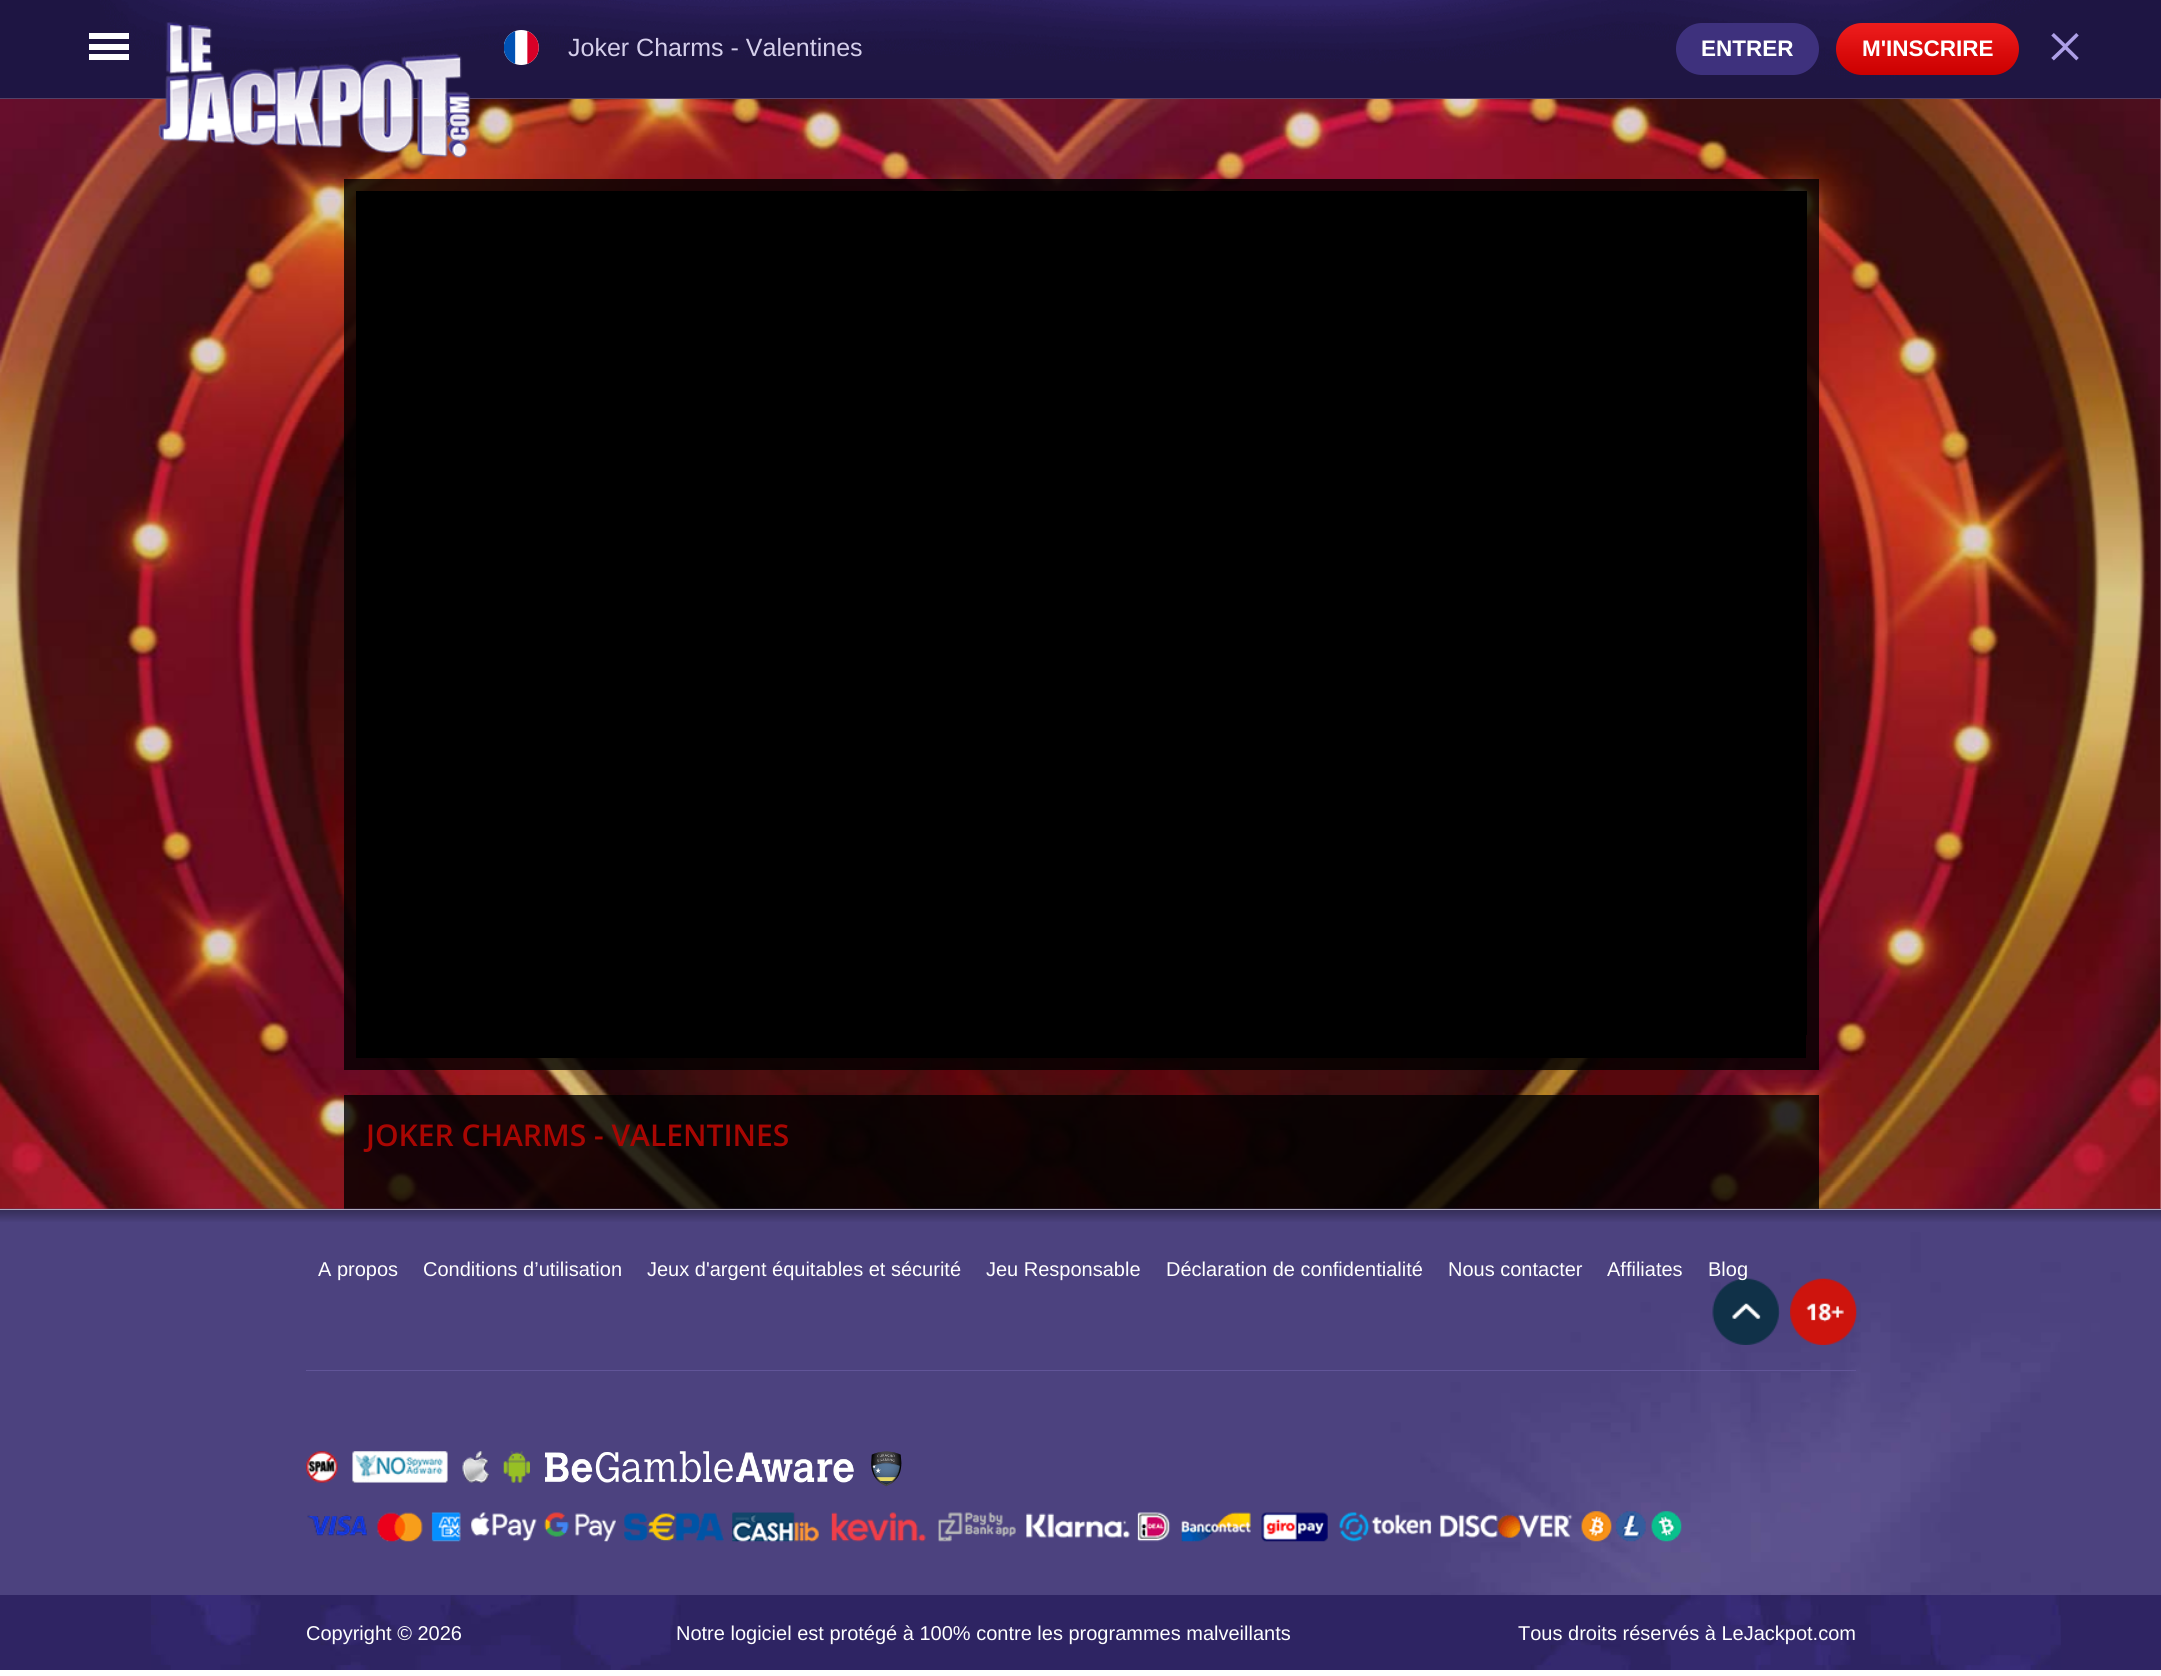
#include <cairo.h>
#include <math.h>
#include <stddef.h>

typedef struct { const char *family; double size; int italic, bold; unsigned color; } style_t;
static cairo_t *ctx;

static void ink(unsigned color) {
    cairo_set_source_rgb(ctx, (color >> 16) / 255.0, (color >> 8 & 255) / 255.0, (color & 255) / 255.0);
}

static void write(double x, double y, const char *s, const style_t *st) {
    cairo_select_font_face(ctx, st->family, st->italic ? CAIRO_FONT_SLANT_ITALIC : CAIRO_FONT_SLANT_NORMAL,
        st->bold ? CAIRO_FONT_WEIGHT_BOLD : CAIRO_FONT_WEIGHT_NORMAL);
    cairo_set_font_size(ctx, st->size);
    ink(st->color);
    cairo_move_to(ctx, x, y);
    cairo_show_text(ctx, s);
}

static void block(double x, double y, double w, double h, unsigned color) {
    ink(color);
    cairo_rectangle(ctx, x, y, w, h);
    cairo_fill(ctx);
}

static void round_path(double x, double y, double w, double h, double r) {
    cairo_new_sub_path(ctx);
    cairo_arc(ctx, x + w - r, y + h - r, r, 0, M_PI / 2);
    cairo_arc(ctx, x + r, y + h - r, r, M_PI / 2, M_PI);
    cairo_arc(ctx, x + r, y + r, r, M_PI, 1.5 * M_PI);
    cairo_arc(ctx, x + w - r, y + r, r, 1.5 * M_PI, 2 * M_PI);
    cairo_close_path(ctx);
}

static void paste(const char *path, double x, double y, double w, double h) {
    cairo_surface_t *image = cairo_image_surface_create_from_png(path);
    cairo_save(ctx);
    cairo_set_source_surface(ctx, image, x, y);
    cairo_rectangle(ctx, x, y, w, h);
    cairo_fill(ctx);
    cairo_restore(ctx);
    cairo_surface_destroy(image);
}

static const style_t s1 = {"Liberation Sans", 25, 0, 0, 0xd5cfeb};
static const style_t s2 = {"Liberation Sans", 22.5, 0, 1, 0xffffff};
static const style_t s3 = {"Open Sans SemiBold", 30, 0, 0, 0xa80602};
static const style_t s4 = {"Liberation Sans", 20, 0, 0, 0xffffff};

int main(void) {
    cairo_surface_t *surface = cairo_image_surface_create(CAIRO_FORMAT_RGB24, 2161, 1676);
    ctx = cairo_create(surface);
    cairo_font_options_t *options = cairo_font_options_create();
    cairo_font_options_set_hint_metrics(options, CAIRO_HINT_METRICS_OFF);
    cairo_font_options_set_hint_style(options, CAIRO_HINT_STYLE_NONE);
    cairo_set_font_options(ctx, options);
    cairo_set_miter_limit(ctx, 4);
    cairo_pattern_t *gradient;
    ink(0xffffff);
    cairo_paint(ctx);
    paste("pic1.png", 0, 99, 2161, 1110);
    block(0, 0, 2161, 98, 0x1e1543);
    paste("pic3.png", 100, 0, 1940, 80);
    write(568, 56, "Joker Charms - Valentines", &s1);
    paste("pic2.png", 2051, 33, 28, 28);
    block(0, 98, 2161, 1, 0x534167);
    paste("pic4.png", 158, 21, 313, 137);
    ink(0xffffff);
    cairo_new_path(ctx);
    cairo_move_to(ctx, 89, 60);
    cairo_line_to(ctx, 89, 54);
    cairo_line_to(ctx, 129, 54);
    cairo_line_to(ctx, 129, 60);
    cairo_close_path(ctx);
    cairo_move_to(ctx, 89, 44);
    cairo_line_to(ctx, 129, 44);
    cairo_line_to(ctx, 129, 50);
    cairo_line_to(ctx, 89, 50);
    cairo_close_path(ctx);
    cairo_move_to(ctx, 89, 33);
    cairo_line_to(ctx, 129, 33);
    cairo_line_to(ctx, 129, 39);
    cairo_line_to(ctx, 89, 39);
    cairo_close_path(ctx);
    cairo_fill(ctx);
    paste("pic5.png", 504, 30, 35, 35);
    ink(0x3e317d);
    round_path(1676, 23, 143, 52, 26);
    cairo_fill(ctx);
    write(1701, 56, "ENTRER", &s2);
    gradient = cairo_pattern_create_linear(1928, 22, 1928, 75);
    cairo_pattern_add_color_stop_rgba(gradient, 0, 0.929, 0.11, 0.11, 1);
    cairo_pattern_add_color_stop_rgba(gradient, 0.21, 0.91, 0.094, 0.094, 1);
    cairo_pattern_add_color_stop_rgba(gradient, 0.62, 0.847, 0.039, 0.039, 1);
    cairo_pattern_add_color_stop_rgba(gradient, 1, 0.8, 0, 0, 1);
    cairo_set_source(ctx, gradient);
    cairo_pattern_destroy(gradient);
    round_path(1836, 23, 183, 52, 26);
    cairo_fill(ctx);
    write(1862, 56, "M'INSCRIRE", &s2);
    cairo_set_source_rgba(ctx, 0, 0, 0, 0.8);
    cairo_rectangle(ctx, 344, 179, 1475, 891);
    cairo_fill(ctx);
    block(356, 191, 1451, 844, 0x000000);
    block(356, 1035, 1450, 23, 0x000000);
    cairo_set_source_rgba(ctx, 0, 0, 0, 0.8);
    cairo_rectangle(ctx, 344, 1095, 1475, 114);
    cairo_fill(ctx);
    write(366, 1146, "JOKER CHARMS - VALENTINES", &s3);
    paste("pic6.png", 0, 1208, 2161, 387);
    block(0, 1209, 2161, 1, 0xb0adc0);
    gradient = cairo_pattern_create_linear(1081, 1210, 1081, 1223);
    cairo_pattern_add_color_stop_rgba(gradient, 0, 0.208, 0.18, 0.349, 1);
    cairo_pattern_add_color_stop_rgba(gradient, 1, 0.298, 0.259, 0.498, 1);
    cairo_set_source(ctx, gradient);
    cairo_pattern_destroy(gradient);
    cairo_rectangle(ctx, 0, 1210, 2161, 12);
    cairo_fill(ctx);
    block(306, 1370, 1550, 1, 0x615598);
    write(318, 1276, "A propos", &s4);
    write(423, 1276, "Conditions d’utilisation", &s4);
    write(647, 1276, "Jeux d'argent équitables et sécurité", &s4);
    write(986, 1276, "Jeu Responsable", &s4);
    write(1166, 1276, "Déclaration de confidentialité", &s4);
    write(1448, 1276, "Nous contacter", &s4);
    write(1607, 1276, "Affiliates", &s4);
    paste("pic7.png", 1712, 1278, 68, 67);
    write(1708, 1276, "Blog", &s4);
    paste("pic8.png", 1790, 1278, 67, 67);
    paste("pic9.png", 306, 1451, 32, 32);
    paste("pic10.png", 352, 1451, 96, 32);
    paste("pic11.png", 462, 1451, 27, 32);
    paste("pic12.png", 503, 1451, 27, 32);
    paste("pic13.png", 545, 1451, 309, 32);
    paste("pic14.png", 871, 1451, 31, 36);
    paste("pic15.png", 307, 1511, 1375, 31);
    block(0, 1595, 2161, 75, 0x2f2463);
    paste("pic16.png", 151, 1595, 1910, 75);
    write(306, 1640, "Copyright © 2026", &s4);
    write(676, 1640, "Notre logiciel est protégé à 100% contre les programmes malveillants", &s4);
    write(1518, 1640, "Tous droits réservés à LeJackpot.com", &s4);
    cairo_surface_write_to_png(surface, "screenshot.png");
    cairo_font_options_destroy(options);
    cairo_destroy(ctx);
    cairo_surface_destroy(surface);
    return 0;
}
